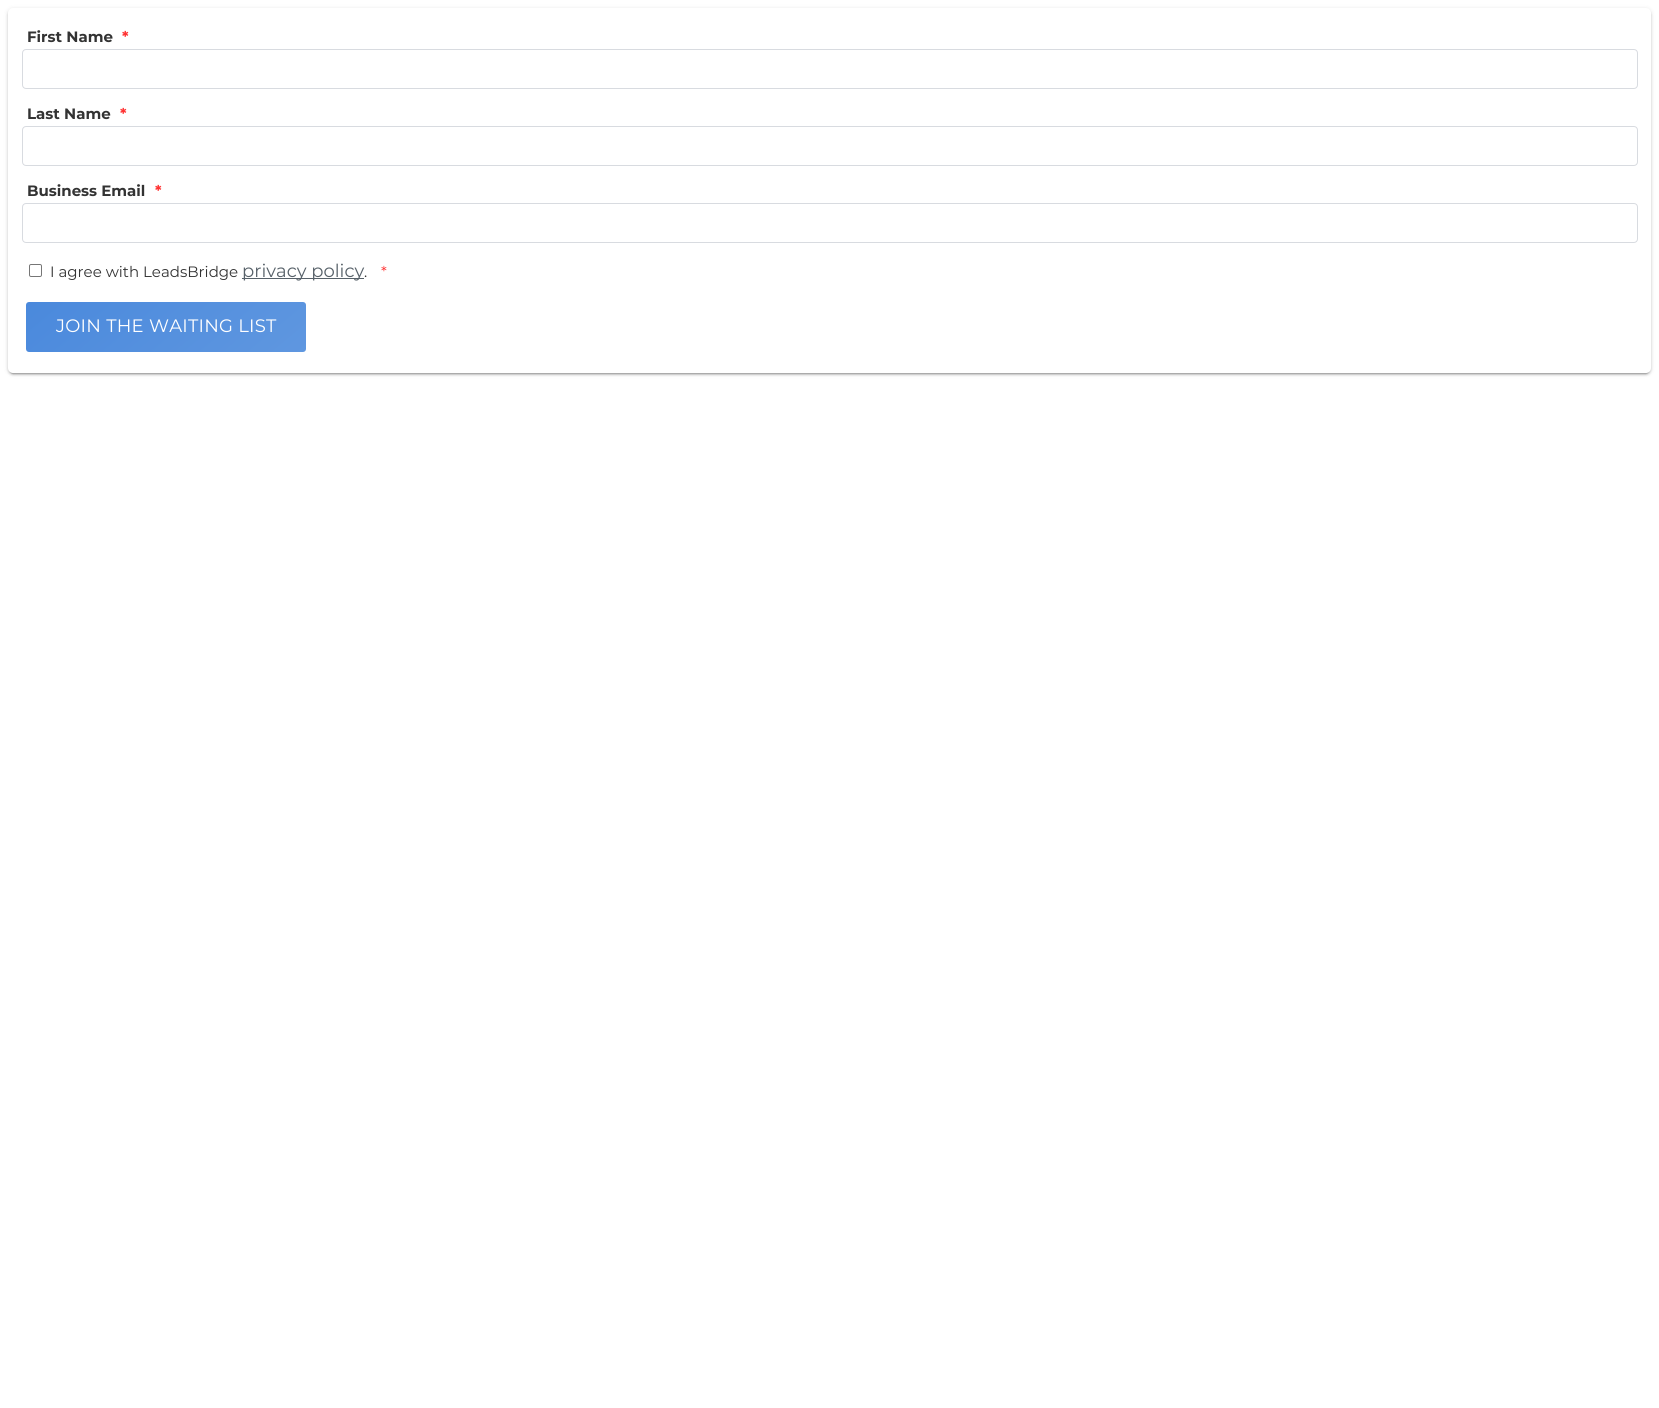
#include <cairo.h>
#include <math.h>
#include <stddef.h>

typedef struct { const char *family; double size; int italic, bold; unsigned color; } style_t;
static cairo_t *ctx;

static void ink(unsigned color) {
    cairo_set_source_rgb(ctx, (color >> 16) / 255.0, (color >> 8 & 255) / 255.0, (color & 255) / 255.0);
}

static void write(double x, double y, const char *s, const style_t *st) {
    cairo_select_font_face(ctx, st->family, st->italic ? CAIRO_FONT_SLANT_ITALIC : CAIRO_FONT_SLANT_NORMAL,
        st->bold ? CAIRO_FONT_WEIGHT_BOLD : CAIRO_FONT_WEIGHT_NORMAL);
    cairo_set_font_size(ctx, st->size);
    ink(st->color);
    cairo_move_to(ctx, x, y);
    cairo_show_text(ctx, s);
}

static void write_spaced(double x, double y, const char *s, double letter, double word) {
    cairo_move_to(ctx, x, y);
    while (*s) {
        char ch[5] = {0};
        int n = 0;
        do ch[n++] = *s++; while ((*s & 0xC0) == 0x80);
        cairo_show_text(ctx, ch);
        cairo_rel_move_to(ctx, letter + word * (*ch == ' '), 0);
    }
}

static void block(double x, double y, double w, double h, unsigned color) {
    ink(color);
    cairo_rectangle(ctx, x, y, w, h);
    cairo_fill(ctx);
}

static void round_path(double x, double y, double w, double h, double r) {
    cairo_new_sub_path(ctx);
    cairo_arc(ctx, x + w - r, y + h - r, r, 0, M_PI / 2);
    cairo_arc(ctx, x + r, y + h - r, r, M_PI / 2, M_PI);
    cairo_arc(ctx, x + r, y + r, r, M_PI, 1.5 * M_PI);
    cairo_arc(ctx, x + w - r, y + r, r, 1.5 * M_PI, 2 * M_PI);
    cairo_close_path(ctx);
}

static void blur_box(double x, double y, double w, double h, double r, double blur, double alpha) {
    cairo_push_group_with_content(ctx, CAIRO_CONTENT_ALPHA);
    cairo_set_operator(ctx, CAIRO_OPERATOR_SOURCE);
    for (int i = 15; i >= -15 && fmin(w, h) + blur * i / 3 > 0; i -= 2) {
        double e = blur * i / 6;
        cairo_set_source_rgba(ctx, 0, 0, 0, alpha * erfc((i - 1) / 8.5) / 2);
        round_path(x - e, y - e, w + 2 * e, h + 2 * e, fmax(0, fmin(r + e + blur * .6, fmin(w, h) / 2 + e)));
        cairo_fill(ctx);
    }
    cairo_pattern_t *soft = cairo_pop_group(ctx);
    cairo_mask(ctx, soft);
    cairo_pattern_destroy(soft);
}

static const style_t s1 = {"Montserrat", 15, 0, 1, 0x333333};
static const style_t s2 = {"Montserrat", 15, 0, 1, 0xff3333};
static const style_t s3 = {"Montserrat", 15, 0, 0, 0x333333};
static const style_t s4 = {"Montserrat", 18, 0, 0, 0x576169};
static const style_t s5 = {"Montserrat", 15, 0, 0, 0xff3333};

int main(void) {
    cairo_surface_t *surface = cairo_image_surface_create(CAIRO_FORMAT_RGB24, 1659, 1408);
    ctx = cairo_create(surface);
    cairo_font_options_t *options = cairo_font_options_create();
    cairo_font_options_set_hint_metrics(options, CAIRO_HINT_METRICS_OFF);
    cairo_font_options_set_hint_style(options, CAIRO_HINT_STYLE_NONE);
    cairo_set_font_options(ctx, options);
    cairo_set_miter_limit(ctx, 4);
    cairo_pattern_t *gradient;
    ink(0xffffff);
    cairo_paint(ctx);
    ink(0x000000);
    blur_box(8, 9, 1643, 365, 5, 2.5, 0.12);
    blur_box(10, 13, 1639, 361, 3, 0.5, 0.2);
    blur_box(8, 10, 1643, 365, 5, 1, 0.14);
    ink(0xffffff);
    round_path(8, 8, 1643, 365, 5);
    cairo_fill(ctx);
    write(27, 42, "First Name", &s1);
    write(122, 42, "*", &s2);
    round_path(22.5, 49.5, 1615, 39, 3.5);
    ink(0xd8dbe0);
    cairo_set_line_width(ctx, 1);
    cairo_stroke(ctx);
    write(27, 119, "Last Name", &s1);
    write(120, 119, "*", &s2);
    round_path(22.5, 126.5, 1615, 39, 3.5);
    ink(0xd8dbe0);
    cairo_stroke(ctx);
    write(27, 196, "Business Email", &s1);
    write(155, 196, "*", &s2);
    round_path(22.5, 203.5, 1615, 39, 3.5);
    ink(0xd8dbe0);
    cairo_stroke(ctx);
    round_path(29.5, 264.5, 12, 12, 1.5);
    ink(0x767676);
    cairo_stroke(ctx);
    write(50, 277, "I agree with LeadsBridge", &s3);
    block(242, 278, 122, 1, 0x576169);
    write(242, 277, "privacy policy", &s4);
    write(381, 277, "*", &s5);
    write(364, 277, ".", &s3);
    gradient = cairo_pattern_create_linear(96, 243, 236, 411);
    cairo_pattern_add_color_stop_rgba(gradient, 0, 0.29, 0.537, 0.863, 1);
    cairo_pattern_add_color_stop_rgba(gradient, 1, 0.373, 0.592, 0.878, 1);
    cairo_set_source(ctx, gradient);
    cairo_pattern_destroy(gradient);
    round_path(26, 302, 280, 50, 3);
    cairo_fill(ctx);
    cairo_set_font_size(ctx, 18);
    ink(0xffffff);
    write_spaced(56, 332, "JOIN THE WAITING LIST", 0.25, 0);
    cairo_surface_write_to_png(surface, "screenshot.png");
    cairo_font_options_destroy(options);
    cairo_destroy(ctx);
    cairo_surface_destroy(surface);
    return 0;
}
